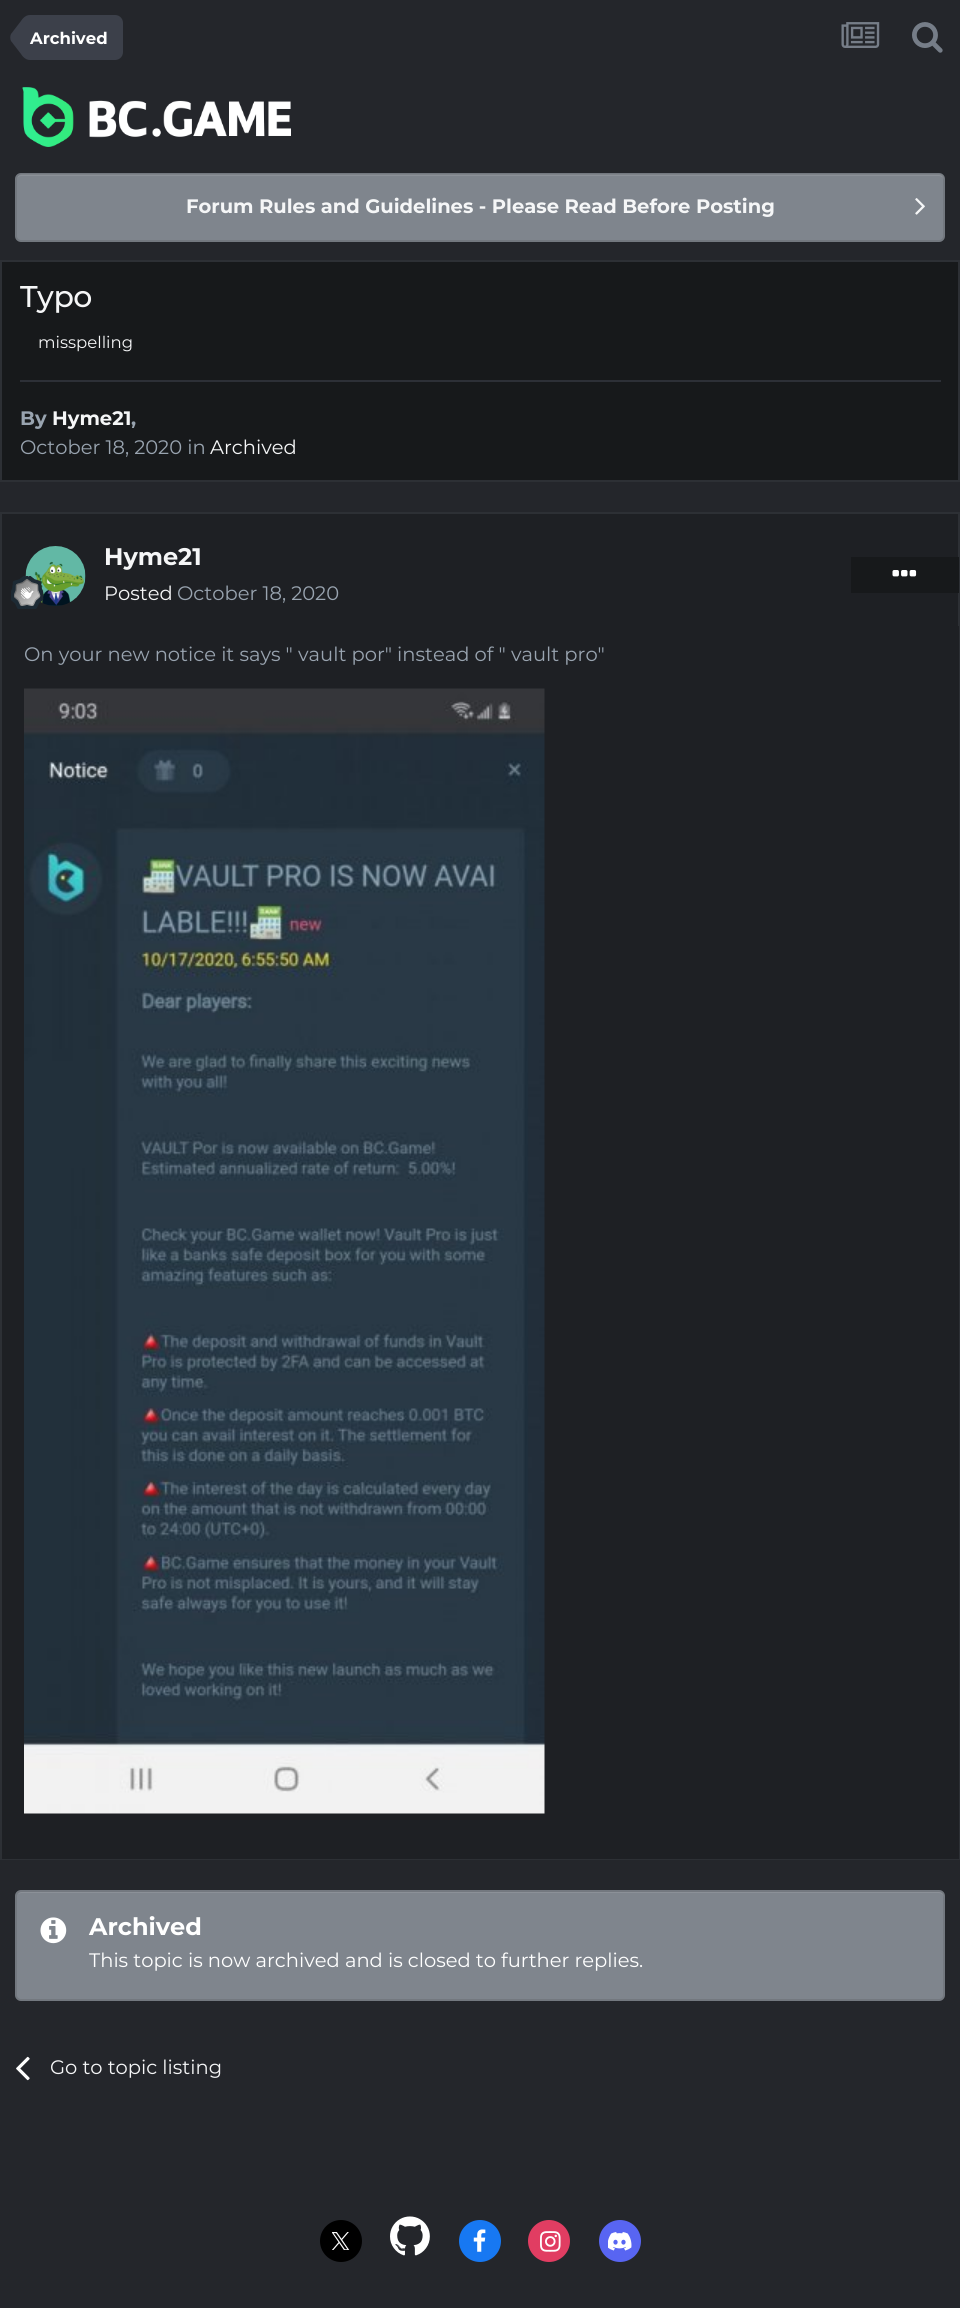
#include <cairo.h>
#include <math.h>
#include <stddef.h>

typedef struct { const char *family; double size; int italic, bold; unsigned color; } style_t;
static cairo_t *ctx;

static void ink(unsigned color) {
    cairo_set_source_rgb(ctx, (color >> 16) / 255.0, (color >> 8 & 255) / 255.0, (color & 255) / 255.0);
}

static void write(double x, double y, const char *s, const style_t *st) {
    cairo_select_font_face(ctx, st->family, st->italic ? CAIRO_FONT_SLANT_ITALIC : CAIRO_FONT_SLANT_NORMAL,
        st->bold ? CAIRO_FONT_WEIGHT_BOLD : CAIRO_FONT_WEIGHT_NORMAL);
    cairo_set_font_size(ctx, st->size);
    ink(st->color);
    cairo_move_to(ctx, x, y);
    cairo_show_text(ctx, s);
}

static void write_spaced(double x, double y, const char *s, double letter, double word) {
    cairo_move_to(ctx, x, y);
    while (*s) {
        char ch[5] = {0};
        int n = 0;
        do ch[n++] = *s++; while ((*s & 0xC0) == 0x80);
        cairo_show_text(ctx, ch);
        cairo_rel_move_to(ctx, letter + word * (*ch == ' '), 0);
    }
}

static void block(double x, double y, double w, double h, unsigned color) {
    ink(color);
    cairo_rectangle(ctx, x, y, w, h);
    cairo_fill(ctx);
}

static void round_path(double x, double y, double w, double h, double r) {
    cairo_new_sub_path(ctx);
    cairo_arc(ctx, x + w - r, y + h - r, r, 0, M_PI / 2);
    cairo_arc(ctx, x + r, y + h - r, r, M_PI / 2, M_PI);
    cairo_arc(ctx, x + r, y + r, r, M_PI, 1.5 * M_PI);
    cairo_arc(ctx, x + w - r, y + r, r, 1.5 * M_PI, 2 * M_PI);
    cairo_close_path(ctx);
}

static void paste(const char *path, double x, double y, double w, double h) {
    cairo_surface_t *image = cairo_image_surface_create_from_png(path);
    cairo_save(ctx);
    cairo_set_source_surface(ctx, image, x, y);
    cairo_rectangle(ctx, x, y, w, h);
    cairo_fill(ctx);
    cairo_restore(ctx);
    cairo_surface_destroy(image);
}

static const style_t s1 = {"Montserrat", 16.5, 0, 1, 0xffffff};
static const style_t s2 = {"Montserrat", 19.5, 0, 1, 0xf5f6f7};
static const style_t s3 = {"Montserrat", 16.5, 0, 0, 0xf5f6f7};
static const style_t s4 = {"Montserrat", 19.5, 0, 1, 0x99a4b0};
static const style_t s5 = {"Montserrat", 19.5, 0, 0, 0x99a4b0};
static const style_t s6 = {"Montserrat", 19.5, 0, 0, 0xf5f6f7};
static const style_t s7 = {"Montserrat", 24, 0, 1, 0xf5f6f7};
static const style_t s8 = {"Montserrat", 24, 0, 1, 0xffffff};
static const style_t s9 = {"Montserrat", 19.5, 0, 0, 0xffffff};

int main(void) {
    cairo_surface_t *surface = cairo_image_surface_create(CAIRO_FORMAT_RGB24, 960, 2308);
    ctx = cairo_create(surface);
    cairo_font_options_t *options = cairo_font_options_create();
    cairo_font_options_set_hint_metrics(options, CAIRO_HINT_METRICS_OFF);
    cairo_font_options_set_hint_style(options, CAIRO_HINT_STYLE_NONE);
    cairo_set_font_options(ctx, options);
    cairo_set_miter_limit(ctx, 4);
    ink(0x24262b);
    cairo_paint(ctx);
    ink(0x3c404a);
    cairo_new_path(ctx);
    cairo_move_to(ctx, 30, 15);
    cairo_line_to(ctx, 115, 15);
    cairo_curve_to(ctx, 119.5, 15, 123, 18.5, 123, 23);
    cairo_line_to(ctx, 123, 52);
    cairo_curve_to(ctx, 123, 56.5, 119.5, 60, 115, 60);
    cairo_line_to(ctx, 30, 60);
    cairo_close_path(ctx);
    cairo_fill(ctx);
    cairo_new_path(ctx);
    cairo_move_to(ctx, 39, 21);
    cairo_line_to(ctx, 42, 25);
    cairo_curve_to(ctx, 47, 32, 47, 43, 42, 50);
    cairo_line_to(ctx, 39, 54);
    cairo_curve_to(ctx, 34, 62, 26, 62, 21, 54);
    cairo_line_to(ctx, 11, 41);
    cairo_curve_to(ctx, 10, 39, 10, 36, 11, 34);
    cairo_line_to(ctx, 21, 21);
    cairo_curve_to(ctx, 26, 13, 34, 13, 39, 21);
    cairo_close_path(ctx);
    cairo_fill(ctx);
    write(30, 44, "Archived", &s1);
    paste("pic1.png", 841, 22, 39, 26);
    paste("pic2.png", 912, 22, 31, 31);
    paste("pic3.png", 22, 87, 269, 60);
    ink(0x7f858d);
    round_path(15, 173, 930, 69, 6);
    cairo_fill(ctx);
    ink(0x8c9198);
    cairo_new_path(ctx);
    cairo_move_to(ctx, 21, 176);
    cairo_line_to(ctx, 939, 176);
    cairo_curve_to(ctx, 941, 176, 944, 178, 944, 180);
    cairo_line_to(ctx, 944, 179);
    cairo_curve_to(ctx, 944, 176, 942, 174, 939, 174);
    cairo_line_to(ctx, 22, 174);
    cairo_curve_to(ctx, 20, 174, 18, 176, 17, 178);
    cairo_curve_to(ctx, 18, 177, 20, 176, 21, 176);
    cairo_close_path(ctx);
    cairo_fill(ctx);
    round_path(16, 174, 928, 67, 5);
    cairo_set_source_rgba(ctx, 0, 0, 0, 0.1);
    cairo_stroke(ctx);
    write(186, 213, "Forum Rules and Guidelines - Please Read Before Posting", &s2);
    paste("pic4.png", 915, 198, 10, 17);
    ink(0x17191b);
    cairo_rectangle(ctx, 1, 261, 958, 220);
    cairo_fill_preserve(ctx);
    ink(0x2d3035);
    cairo_stroke(ctx);
    cairo_select_font_face(ctx, "Montserrat Medium", CAIRO_FONT_SLANT_NORMAL, CAIRO_FONT_WEIGHT_NORMAL);
    cairo_set_font_size(ctx, 30);
    ink(0xf5f6f7);
    write_spaced(20, 307, "Typo", -0.5, 0);
    write(38, 348, "misspelling", &s3);
    block(20, 380, 921, 2, 0x2d3037);
    write(20, 425, "By", &s4);
    write(52, 425, "Hyme21", &s2);
    write(131, 425, ",", &s4);
    write(20, 454, "October 18, 2020 in", &s5);
    write(210, 454, "Archived", &s6);
    block(2, 514, 956, 112, 0x1e2024);
    cairo_rectangle(ctx, 1, 513, 958, 1346);
    ink(0x2d3035);
    cairo_stroke(ctx);
    paste("pic5.png", 25, 546, 61, 60);
    paste("pic6.png", 11, 576, 33, 33);
    write(104, 565, "Hyme21", &s7);
    write(104, 600, "Posted", &s6);
    write(177, 600, "October 18, 2020", &s5);
    block(2, 626, 957, 1233, 0x1e2024);
    block(851, 557, 108, 36, 0x17191b);
    paste("pic7.png", 892, 570, 25, 7);
    write(24, 661, "On your new notice it says \" vault por\" instead of \" vault pro\"", &s5);
    paste("pic8.png", 24, 688, 521, 1126);
    ink(0x7f858d);
    round_path(15, 1890, 930, 111, 6);
    cairo_fill(ctx);
    ink(0x8c9198);
    cairo_new_path(ctx);
    cairo_move_to(ctx, 21, 1893);
    cairo_line_to(ctx, 939, 1893);
    cairo_curve_to(ctx, 941, 1893, 944, 1895, 944, 1898);
    cairo_line_to(ctx, 944, 1897);
    cairo_curve_to(ctx, 944, 1894, 942, 1892, 939, 1892);
    cairo_line_to(ctx, 22, 1892);
    cairo_curve_to(ctx, 20, 1892, 19, 1893, 18, 1894);
    cairo_close_path(ctx);
    cairo_fill(ctx);
    round_path(16, 1891, 928, 109, 5);
    cairo_set_source_rgba(ctx, 0, 0, 0, 0.1);
    cairo_stroke(ctx);
    paste("pic9.png", 40, 1917, 27, 27);
    write(89, 1935, "Archived", &s8);
    write(89, 1967, "This topic is now archived and is closed to further replies.", &s9);
    paste("pic10.png", 16, 2056, 14, 25);
    write(50, 2074, "Go to topic listing", &s6);
    ink(0x000000);
    cairo_new_path(ctx);
    cairo_arc(ctx, 341, 2241, 21, 0, 2 * M_PI);
    cairo_fill(ctx);
    paste("pic11.png", 332, 2232, 18, 18);
    paste("pic12.png", 390, 2216, 40, 40);
    ink(0x1778f2);
    cairo_arc(ctx, 480, 2241, 21, 0, 2 * M_PI);
    cairo_fill(ctx);
    paste("pic13.png", 473, 2229, 13, 23);
    ink(0xe13d62);
    cairo_arc(ctx, 549, 2241, 21, 0, 2 * M_PI);
    cairo_fill(ctx);
    paste("pic14.png", 540, 2231, 21, 21);
    ink(0x5865f2);
    cairo_arc(ctx, 620, 2241, 21, 0, 2 * M_PI);
    cairo_fill(ctx);
    paste("pic15.png", 608, 2232, 24, 19);
    cairo_surface_write_to_png(surface, "screenshot.png");
    cairo_font_options_destroy(options);
    cairo_destroy(ctx);
    cairo_surface_destroy(surface);
    return 0;
}
